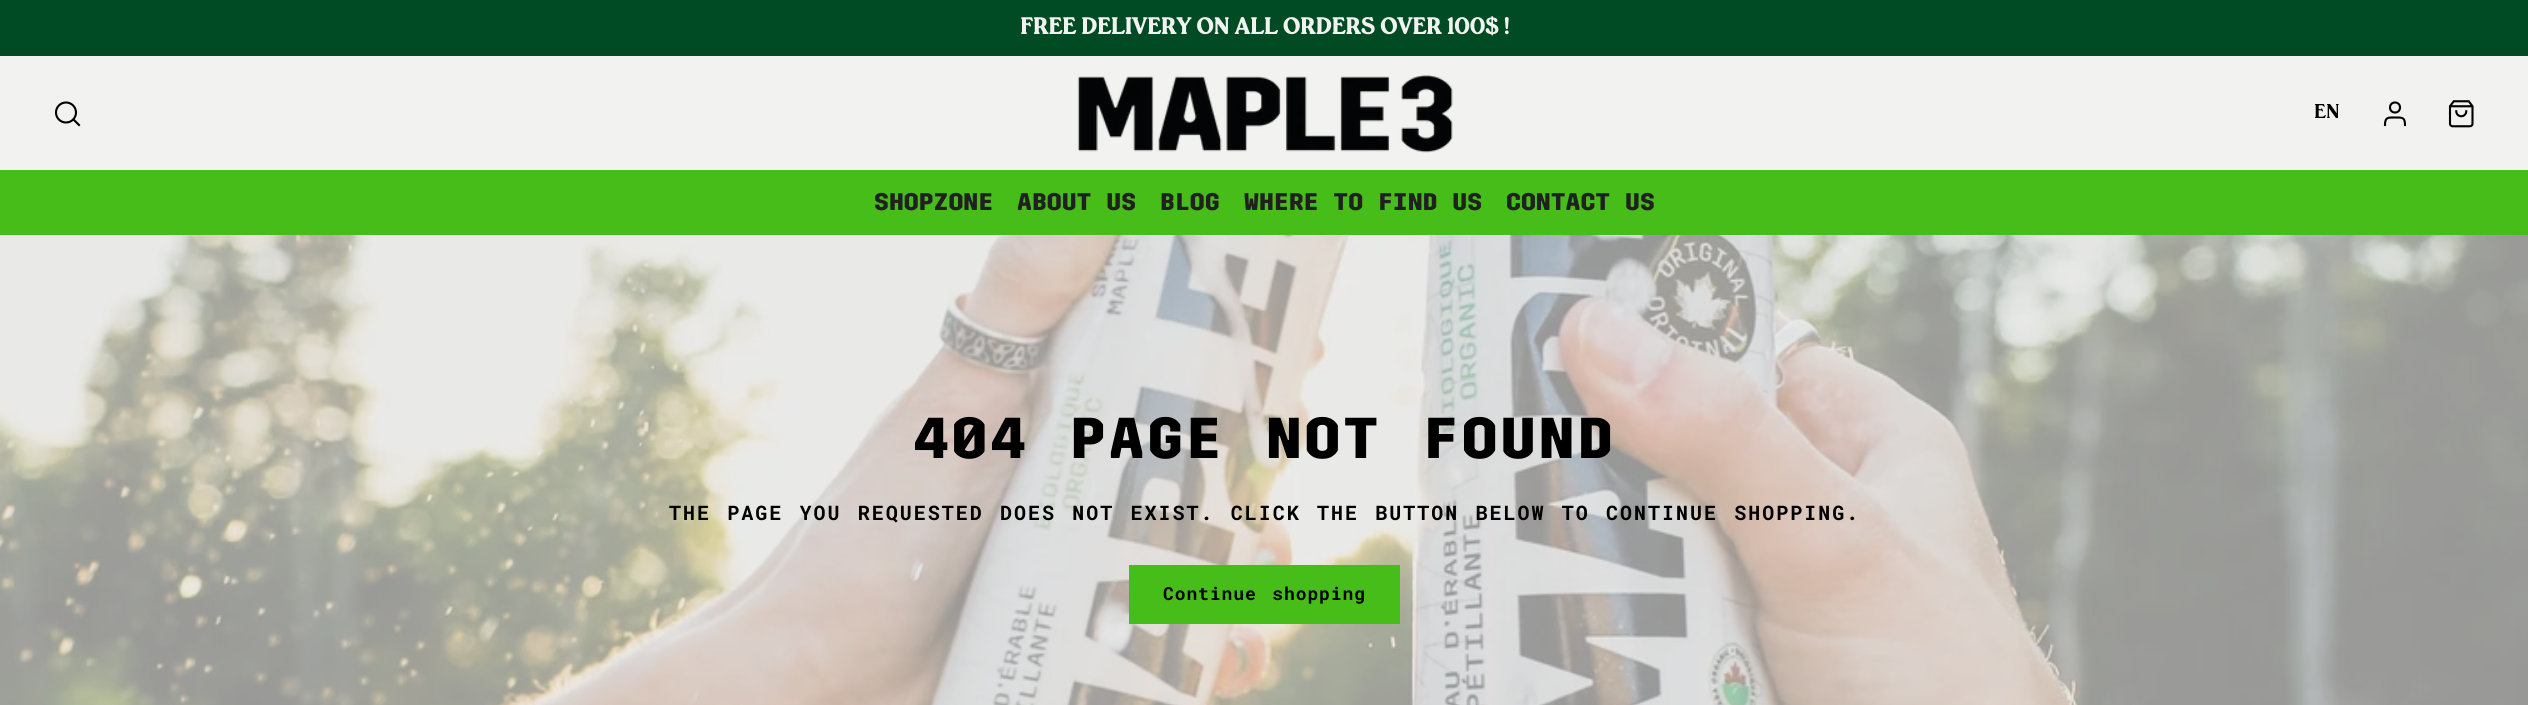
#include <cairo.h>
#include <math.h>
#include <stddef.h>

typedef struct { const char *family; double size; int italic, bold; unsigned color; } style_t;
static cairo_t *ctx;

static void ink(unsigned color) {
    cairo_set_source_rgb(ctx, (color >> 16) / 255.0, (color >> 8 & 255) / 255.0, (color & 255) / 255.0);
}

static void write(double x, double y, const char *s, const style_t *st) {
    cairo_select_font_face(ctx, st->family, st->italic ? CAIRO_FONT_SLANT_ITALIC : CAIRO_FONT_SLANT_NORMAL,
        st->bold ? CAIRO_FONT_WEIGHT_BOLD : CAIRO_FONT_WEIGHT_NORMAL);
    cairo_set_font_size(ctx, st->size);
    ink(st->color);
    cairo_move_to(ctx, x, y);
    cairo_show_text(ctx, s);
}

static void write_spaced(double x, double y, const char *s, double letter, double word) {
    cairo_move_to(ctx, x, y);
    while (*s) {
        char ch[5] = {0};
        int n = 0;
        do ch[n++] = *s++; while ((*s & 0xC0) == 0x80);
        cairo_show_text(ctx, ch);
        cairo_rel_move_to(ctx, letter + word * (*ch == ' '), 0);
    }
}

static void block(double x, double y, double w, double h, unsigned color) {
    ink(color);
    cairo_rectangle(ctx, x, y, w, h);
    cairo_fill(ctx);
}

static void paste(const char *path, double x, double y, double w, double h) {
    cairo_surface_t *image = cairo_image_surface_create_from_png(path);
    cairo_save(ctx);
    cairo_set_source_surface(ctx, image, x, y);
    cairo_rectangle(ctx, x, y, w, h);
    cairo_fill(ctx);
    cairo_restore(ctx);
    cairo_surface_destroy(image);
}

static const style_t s1 = {"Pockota", 23, 0, 1, 0xf2f2f0};
static const style_t s2 = {"Pockota Medium", 20, 0, 0, 0x000000};
static const style_t s3 = {"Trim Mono", 24, 0, 1, 0x202020};

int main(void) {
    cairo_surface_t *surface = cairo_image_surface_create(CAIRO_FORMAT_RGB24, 2528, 705);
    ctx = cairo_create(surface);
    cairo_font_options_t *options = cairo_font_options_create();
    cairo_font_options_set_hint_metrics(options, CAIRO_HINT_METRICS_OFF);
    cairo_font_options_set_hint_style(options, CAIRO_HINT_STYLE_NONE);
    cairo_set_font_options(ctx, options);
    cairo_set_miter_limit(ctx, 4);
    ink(0xf2f2f0);
    cairo_paint(ctx);
    block(0, 0, 2528, 56, 0x004a24);
    write(1020, 34, "FREE DELIVERY ON ALL ORDERS OVER 100$ !", &s1);
    cairo_new_path(ctx);
    cairo_arc(ctx, 66, 112.5, 10, 0, 2 * M_PI);
    ink(0x000000);
    cairo_set_line_width(ctx, 2.1);
    cairo_stroke(ctx);
    cairo_new_path(ctx);
    cairo_move_to(ctx, 79, 125);
    cairo_line_to(ctx, 73.5, 119.5);
    cairo_set_line_cap(ctx, CAIRO_LINE_CAP_SQUARE);
    cairo_stroke(ctx);
    paste("pic1.png", 1077, 75, 376, 78);
    write(2314, 118, "EN", &s2);
    cairo_new_path(ctx);
    cairo_move_to(ctx, 2405, 125);
    cairo_curve_to(ctx, 2405, 117, 2402, 117.5, 2395, 117.5);
    cairo_curve_to(ctx, 2388, 117.5, 2385, 117, 2385, 125);
    cairo_stroke(ctx);
    cairo_arc(ctx, 2395, 107.5, 5, 0, 2 * M_PI);
    cairo_set_line_cap(ctx, CAIRO_LINE_CAP_BUTT);
    cairo_stroke(ctx);
    paste("pic2.png", 2448, 100, 26, 28);
    block(0, 170, 2528, 65, 0x47bd1a);
    write(874, 210, "SHOPZONE", &s3);
    write(1017, 210, "ABOUT US", &s3);
    write(1160, 210, "BLOG", &s3);
    write(1244, 210, "WHERE TO FIND US", &s3);
    write(1506, 210, "CONTACT US", &s3);
    paste("pic3.png", 0, 235, 2528, 470);
    cairo_set_font_size(ctx, 57.5);
    ink(0x000000);
    write_spaced(913, 458, "404 PAGE NOT FOUND", 2.9, 3);
    cairo_select_font_face(ctx, "Roboto Mono", CAIRO_FONT_SLANT_NORMAL, CAIRO_FONT_WEIGHT_BOLD);
    cairo_set_font_size(ctx, 20);
    write_spaced(669, 520, "THE PAGE YOU REQUESTED DOES NOT EXIST. CLICK THE BUTTON BELOW TO CONTINUE SHOPPING.", 2, 2.25);
    block(1129, 565, 271, 59, 0x47bd1a);
    cairo_set_font_size(ctx, 18);
    ink(0x000000);
    write_spaced(1163, 600, "Continue shopping", 0.9, 4);
    cairo_surface_write_to_png(surface, "screenshot.png");
    cairo_font_options_destroy(options);
    cairo_destroy(ctx);
    cairo_surface_destroy(surface);
    return 0;
}
